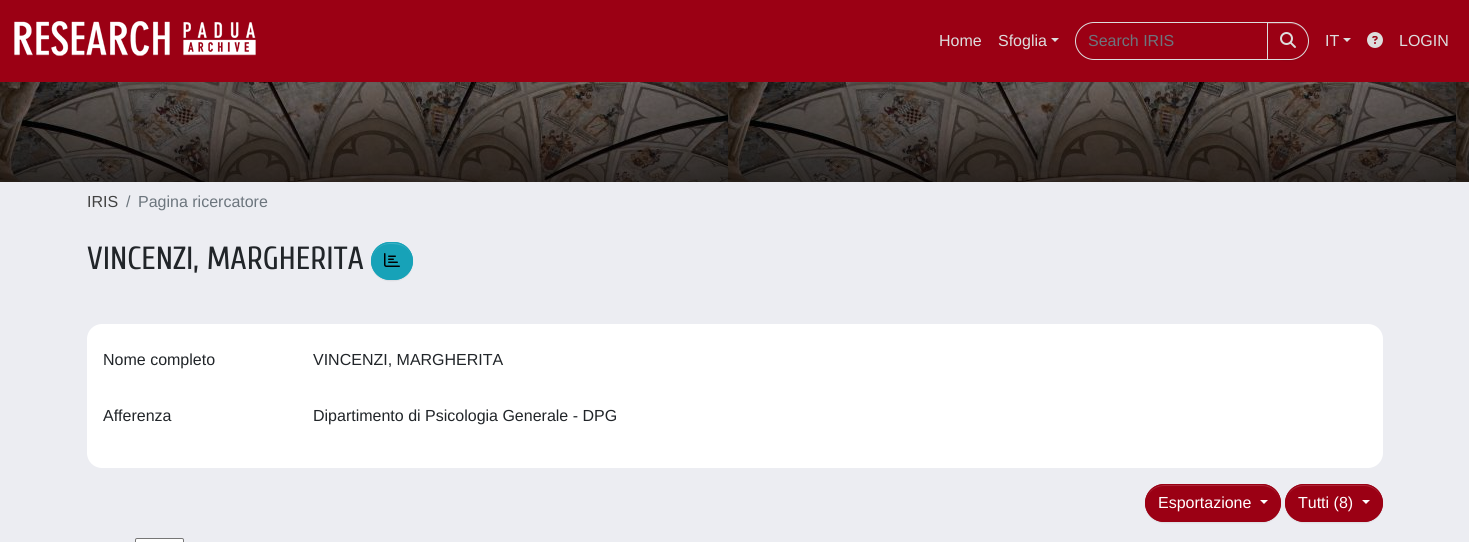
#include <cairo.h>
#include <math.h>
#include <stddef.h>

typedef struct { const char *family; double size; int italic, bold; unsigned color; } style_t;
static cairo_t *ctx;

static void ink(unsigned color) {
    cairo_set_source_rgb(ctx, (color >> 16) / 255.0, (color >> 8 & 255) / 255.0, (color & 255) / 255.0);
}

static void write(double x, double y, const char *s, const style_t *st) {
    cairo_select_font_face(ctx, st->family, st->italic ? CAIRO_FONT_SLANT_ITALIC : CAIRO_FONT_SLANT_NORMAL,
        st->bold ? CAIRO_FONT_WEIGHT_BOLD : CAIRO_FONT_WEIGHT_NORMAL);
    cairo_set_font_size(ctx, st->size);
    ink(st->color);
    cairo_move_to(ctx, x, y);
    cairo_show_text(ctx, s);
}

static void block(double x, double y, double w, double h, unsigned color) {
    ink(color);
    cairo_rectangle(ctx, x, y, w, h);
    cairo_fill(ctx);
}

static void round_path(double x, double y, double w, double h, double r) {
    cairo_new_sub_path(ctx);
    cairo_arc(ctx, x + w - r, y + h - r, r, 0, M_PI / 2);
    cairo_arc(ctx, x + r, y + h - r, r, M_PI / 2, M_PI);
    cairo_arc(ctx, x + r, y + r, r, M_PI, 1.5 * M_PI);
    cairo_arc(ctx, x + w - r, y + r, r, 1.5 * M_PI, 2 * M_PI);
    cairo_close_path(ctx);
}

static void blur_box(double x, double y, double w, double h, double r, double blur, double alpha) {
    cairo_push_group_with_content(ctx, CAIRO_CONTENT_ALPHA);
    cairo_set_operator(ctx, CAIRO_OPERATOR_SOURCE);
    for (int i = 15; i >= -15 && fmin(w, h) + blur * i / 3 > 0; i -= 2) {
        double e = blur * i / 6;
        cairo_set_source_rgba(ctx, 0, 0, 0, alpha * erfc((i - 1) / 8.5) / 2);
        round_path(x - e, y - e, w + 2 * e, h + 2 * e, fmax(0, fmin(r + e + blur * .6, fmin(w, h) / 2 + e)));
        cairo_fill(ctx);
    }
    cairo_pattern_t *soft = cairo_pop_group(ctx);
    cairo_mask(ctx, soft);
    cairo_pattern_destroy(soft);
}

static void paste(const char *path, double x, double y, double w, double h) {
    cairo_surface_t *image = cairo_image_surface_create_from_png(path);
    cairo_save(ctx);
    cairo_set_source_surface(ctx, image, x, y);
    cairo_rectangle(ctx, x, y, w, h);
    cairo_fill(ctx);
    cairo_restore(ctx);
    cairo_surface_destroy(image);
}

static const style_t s1 = {"Liberation Sans", 16, 0, 0, 0xdddddd};
static const style_t s2 = {"Liberation Sans", 16, 0, 0, 0x6c757d};
static const style_t s3 = {"Liberation Sans", 16, 0, 0, 0x424242};
static const style_t s4 = {"Cuprum", 32, 0, 0, 0x212529};
static const style_t s5 = {"Liberation Sans", 16, 0, 0, 0x212529};
static const style_t s6 = {"Liberation Sans", 16, 0, 0, 0xffffff};

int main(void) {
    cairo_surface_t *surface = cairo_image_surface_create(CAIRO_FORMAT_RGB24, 1469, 542);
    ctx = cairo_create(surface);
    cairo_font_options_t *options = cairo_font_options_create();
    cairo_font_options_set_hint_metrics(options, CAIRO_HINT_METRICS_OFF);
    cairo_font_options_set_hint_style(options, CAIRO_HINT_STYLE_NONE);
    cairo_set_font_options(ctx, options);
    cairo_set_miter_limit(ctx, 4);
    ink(0xecedf2);
    cairo_paint(ctx);
    block(0, 0, 1469, 82, 0x9b0014);
    paste("pic1.png", 14, 21, 242, 35);
    write(939, 46, "Home", &s1);
    write(998, 46, "Sfoglia", &s1);
    cairo_new_path(ctx);
    cairo_move_to(ctx, 1051, 38);
    cairo_line_to(ctx, 1059, 38);
    cairo_line_to(ctx, 1055, 42);
    cairo_close_path(ctx);
    cairo_fill(ctx);
    cairo_new_path(ctx);
    cairo_move_to(ctx, 1094, 22.5);
    cairo_line_to(ctx, 1267.5, 22.5);
    cairo_line_to(ctx, 1267.5, 59.5);
    cairo_line_to(ctx, 1094, 59.5);
    cairo_curve_to(ctx, 1084, 59.5, 1075.5, 51, 1075.5, 41);
    cairo_curve_to(ctx, 1075.5, 31, 1084, 22.5, 1094, 22.5);
    cairo_close_path(ctx);
    cairo_set_line_width(ctx, 1);
    cairo_stroke(ctx);
    write(1088, 46, "Search IRIS", &s2);
    ink(0x000000);
    blur_box(1267, 23, 42, 38, 19, 0.5, 0.07);
    ink(0x9b0014);
    cairo_new_path(ctx);
    cairo_move_to(ctx, 1267, 22);
    cairo_line_to(ctx, 1290, 22);
    cairo_curve_to(ctx, 1300.5, 22, 1309, 30.5, 1309, 41);
    cairo_curve_to(ctx, 1309, 51.5, 1300.5, 60, 1290, 60);
    cairo_line_to(ctx, 1267, 60);
    cairo_close_path(ctx);
    cairo_fill(ctx);
    ink(0xaa2637);
    cairo_new_path(ctx);
    cairo_move_to(ctx, 1268, 24);
    cairo_line_to(ctx, 1290, 24);
    cairo_curve_to(ctx, 1300, 24, 1308, 32, 1308, 41);
    cairo_curve_to(ctx, 1308, 33, 1302, 25, 1294, 23);
    cairo_line_to(ctx, 1268, 23);
    cairo_close_path(ctx);
    cairo_fill(ctx);
    cairo_new_path(ctx);
    cairo_move_to(ctx, 1267.5, 22.5);
    cairo_line_to(ctx, 1290, 22.5);
    cairo_curve_to(ctx, 1300, 22.5, 1308.5, 31, 1308.5, 41);
    cairo_curve_to(ctx, 1308.5, 51, 1300, 59.5, 1290, 59.5);
    cairo_line_to(ctx, 1267.5, 59.5);
    cairo_close_path(ctx);
    ink(0xdddddd);
    cairo_stroke(ctx);
    paste("pic2.png", 1280, 32, 16, 16);
    write(1325, 46, "IT", &s1);
    cairo_new_path(ctx);
    cairo_move_to(ctx, 1343, 38);
    cairo_line_to(ctx, 1351, 38);
    cairo_line_to(ctx, 1347, 42);
    cairo_close_path(ctx);
    cairo_fill(ctx);
    paste("pic3.png", 1367, 32, 16, 16);
    write(1399, 46, "LOGIN", &s1);
    paste("pic4.png", 0, 82, 1469, 100);
    write(87, 207, "IRIS", &s3);
    write(126, 207, "/", &s2);
    write(138, 207, "Pagina ricercatore", &s2);
    write(87, 269, "VINCENZI, MARGHERITA", &s4);
    ink(0x000000);
    blur_box(371, 243, 42, 38, 19, 0.5, 0.07);
    ink(0x17a2b8);
    round_path(371, 242, 42, 38, 19);
    cairo_fill(ctx);
    ink(0x3ab0c3);
    cairo_new_path(ctx);
    cairo_move_to(ctx, 390, 244);
    cairo_curve_to(ctx, 400, 244, 409, 246, 412, 258);
    cairo_curve_to(ctx, 408, 235, 369, 239, 372, 263);
    cairo_curve_to(ctx, 371, 254, 378, 244, 390, 244);
    cairo_close_path(ctx);
    cairo_fill(ctx);
    round_path(371.5, 242.5, 41, 37, 18.5);
    ink(0x17a2b8);
    cairo_stroke(ctx);
    paste("pic5.png", 384, 253, 16, 14);
    ink(0xffffff);
    round_path(87, 324, 1296, 144, 15);
    cairo_fill(ctx);
    write(103, 365, "Nome completo", &s5);
    write(313, 365, "VINCENZI, MARGHERITA", &s5);
    write(103, 421, "Afferenza", &s5);
    write(313, 421, "Dipartimento di Psicologia Generale - DPG", &s5);
    ink(0x000000);
    blur_box(1145, 485, 136, 38, 19, 0.5, 0.07);
    ink(0x9b0014);
    round_path(1145, 484, 136, 38, 19);
    cairo_fill(ctx);
    ink(0xaa2637);
    cairo_new_path(ctx);
    cairo_move_to(ctx, 1164, 486);
    cairo_line_to(ctx, 1262, 486);
    cairo_curve_to(ctx, 1272, 486, 1280, 494, 1280, 503);
    cairo_curve_to(ctx, 1280, 493, 1272, 485, 1262, 485);
    cairo_line_to(ctx, 1164, 485);
    cairo_curve_to(ctx, 1154, 485, 1146, 493, 1146, 503);
    cairo_curve_to(ctx, 1146, 494, 1154, 486, 1164, 486);
    cairo_close_path(ctx);
    cairo_fill(ctx);
    round_path(1145.5, 484.5, 135, 37, 18.5);
    ink(0x9b0014);
    cairo_stroke(ctx);
    write(1158, 508, "Esportazione", &s6);
    cairo_new_path(ctx);
    cairo_move_to(ctx, 1260, 500);
    cairo_line_to(ctx, 1268, 500);
    cairo_line_to(ctx, 1264, 504);
    cairo_close_path(ctx);
    cairo_fill(ctx);
    ink(0x000000);
    blur_box(1285, 485, 98, 38, 19, 0.5, 0.07);
    ink(0x9b0014);
    round_path(1285, 484, 98, 38, 19);
    cairo_fill(ctx);
    ink(0xaa2637);
    cairo_new_path(ctx);
    cairo_move_to(ctx, 1304, 486);
    cairo_line_to(ctx, 1364, 486);
    cairo_curve_to(ctx, 1374, 486, 1382, 494, 1382, 503);
    cairo_curve_to(ctx, 1382, 495, 1376, 487, 1368, 485);
    cairo_line_to(ctx, 1354, 485);
    cairo_line_to(ctx, 1300, 485);
    cairo_curve_to(ctx, 1292, 487, 1286, 495, 1286, 503);
    cairo_curve_to(ctx, 1286, 494, 1294, 486, 1304, 486);
    cairo_close_path(ctx);
    cairo_fill(ctx);
    round_path(1285.5, 484.5, 97, 37, 18.5);
    ink(0x9b0014);
    cairo_stroke(ctx);
    write(1298, 508, "Tutti (8)", &s6);
    cairo_new_path(ctx);
    cairo_move_to(ctx, 1362, 500);
    cairo_line_to(ctx, 1370, 500);
    cairo_line_to(ctx, 1366, 504);
    cairo_close_path(ctx);
    cairo_fill(ctx);
    round_path(135.5, 538.5, 48, 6, 1.5);
    cairo_fill_preserve(ctx);
    ink(0x767676);
    cairo_stroke(ctx);
    cairo_surface_write_to_png(surface, "screenshot.png");
    cairo_font_options_destroy(options);
    cairo_destroy(ctx);
    cairo_surface_destroy(surface);
    return 0;
}
